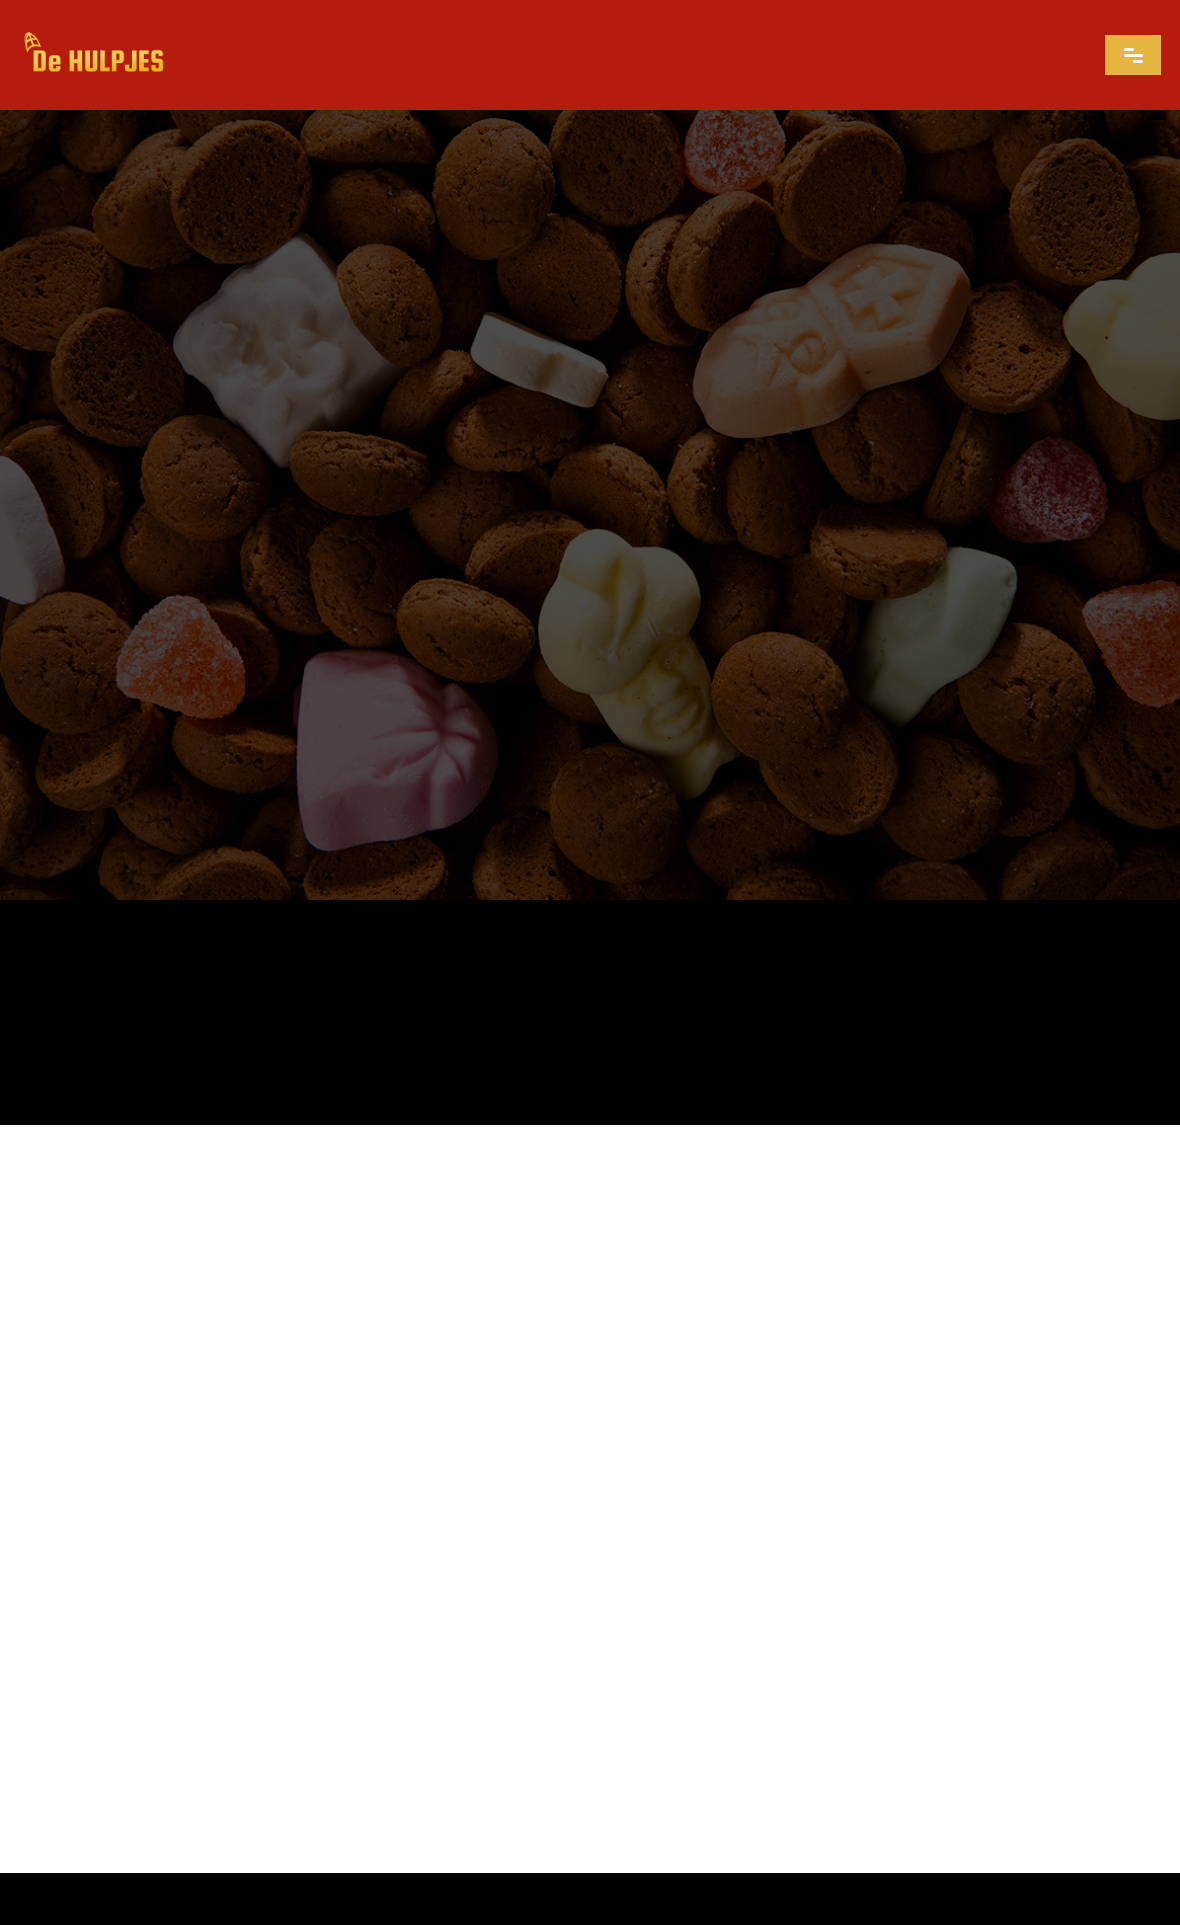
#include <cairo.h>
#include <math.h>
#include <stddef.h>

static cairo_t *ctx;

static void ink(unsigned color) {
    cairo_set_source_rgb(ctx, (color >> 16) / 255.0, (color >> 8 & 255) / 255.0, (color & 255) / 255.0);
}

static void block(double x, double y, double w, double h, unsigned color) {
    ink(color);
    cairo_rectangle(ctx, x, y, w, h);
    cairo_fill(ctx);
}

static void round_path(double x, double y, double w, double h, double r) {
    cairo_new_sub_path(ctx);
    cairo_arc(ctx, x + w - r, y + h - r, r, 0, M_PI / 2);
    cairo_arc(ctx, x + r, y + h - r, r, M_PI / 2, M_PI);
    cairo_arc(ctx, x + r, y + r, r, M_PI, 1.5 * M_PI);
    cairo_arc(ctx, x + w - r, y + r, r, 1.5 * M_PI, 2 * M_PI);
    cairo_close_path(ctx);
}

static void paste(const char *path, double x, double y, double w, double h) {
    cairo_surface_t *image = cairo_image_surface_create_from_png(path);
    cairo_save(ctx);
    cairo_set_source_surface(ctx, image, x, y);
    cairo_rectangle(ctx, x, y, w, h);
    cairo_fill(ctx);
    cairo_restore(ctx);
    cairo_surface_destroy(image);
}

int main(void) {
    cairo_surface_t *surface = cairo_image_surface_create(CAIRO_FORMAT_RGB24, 1180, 1925);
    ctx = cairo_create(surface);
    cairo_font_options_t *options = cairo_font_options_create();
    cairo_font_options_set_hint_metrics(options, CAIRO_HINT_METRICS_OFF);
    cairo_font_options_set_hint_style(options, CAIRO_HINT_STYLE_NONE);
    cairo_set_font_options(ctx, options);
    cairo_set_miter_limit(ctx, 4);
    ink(0xffffff);
    cairo_paint(ctx);
    block(0, 0, 1180, 110, 0xb71b0d);
    paste("pic1.png", 24, 31, 140, 41);
    block(1105, 35, 56, 40, 0xe6b440);
    ink(0xffffff);
    round_path(1124, 54, 19, 3, 1.5);
    cairo_fill(ctx);
    round_path(1124, 48, 10, 3, 1.5);
    cairo_fill(ctx);
    round_path(1133, 60, 10, 3, 1.5);
    cairo_fill(ctx);
    paste("pic2.png", 0, 110, 1180, 790);
    block(0, 900, 1180, 225, 0x000000);
    block(0, 1873, 1180, 52, 0x000000);
    cairo_surface_write_to_png(surface, "screenshot.png");
    cairo_font_options_destroy(options);
    cairo_destroy(ctx);
    cairo_surface_destroy(surface);
    return 0;
}
